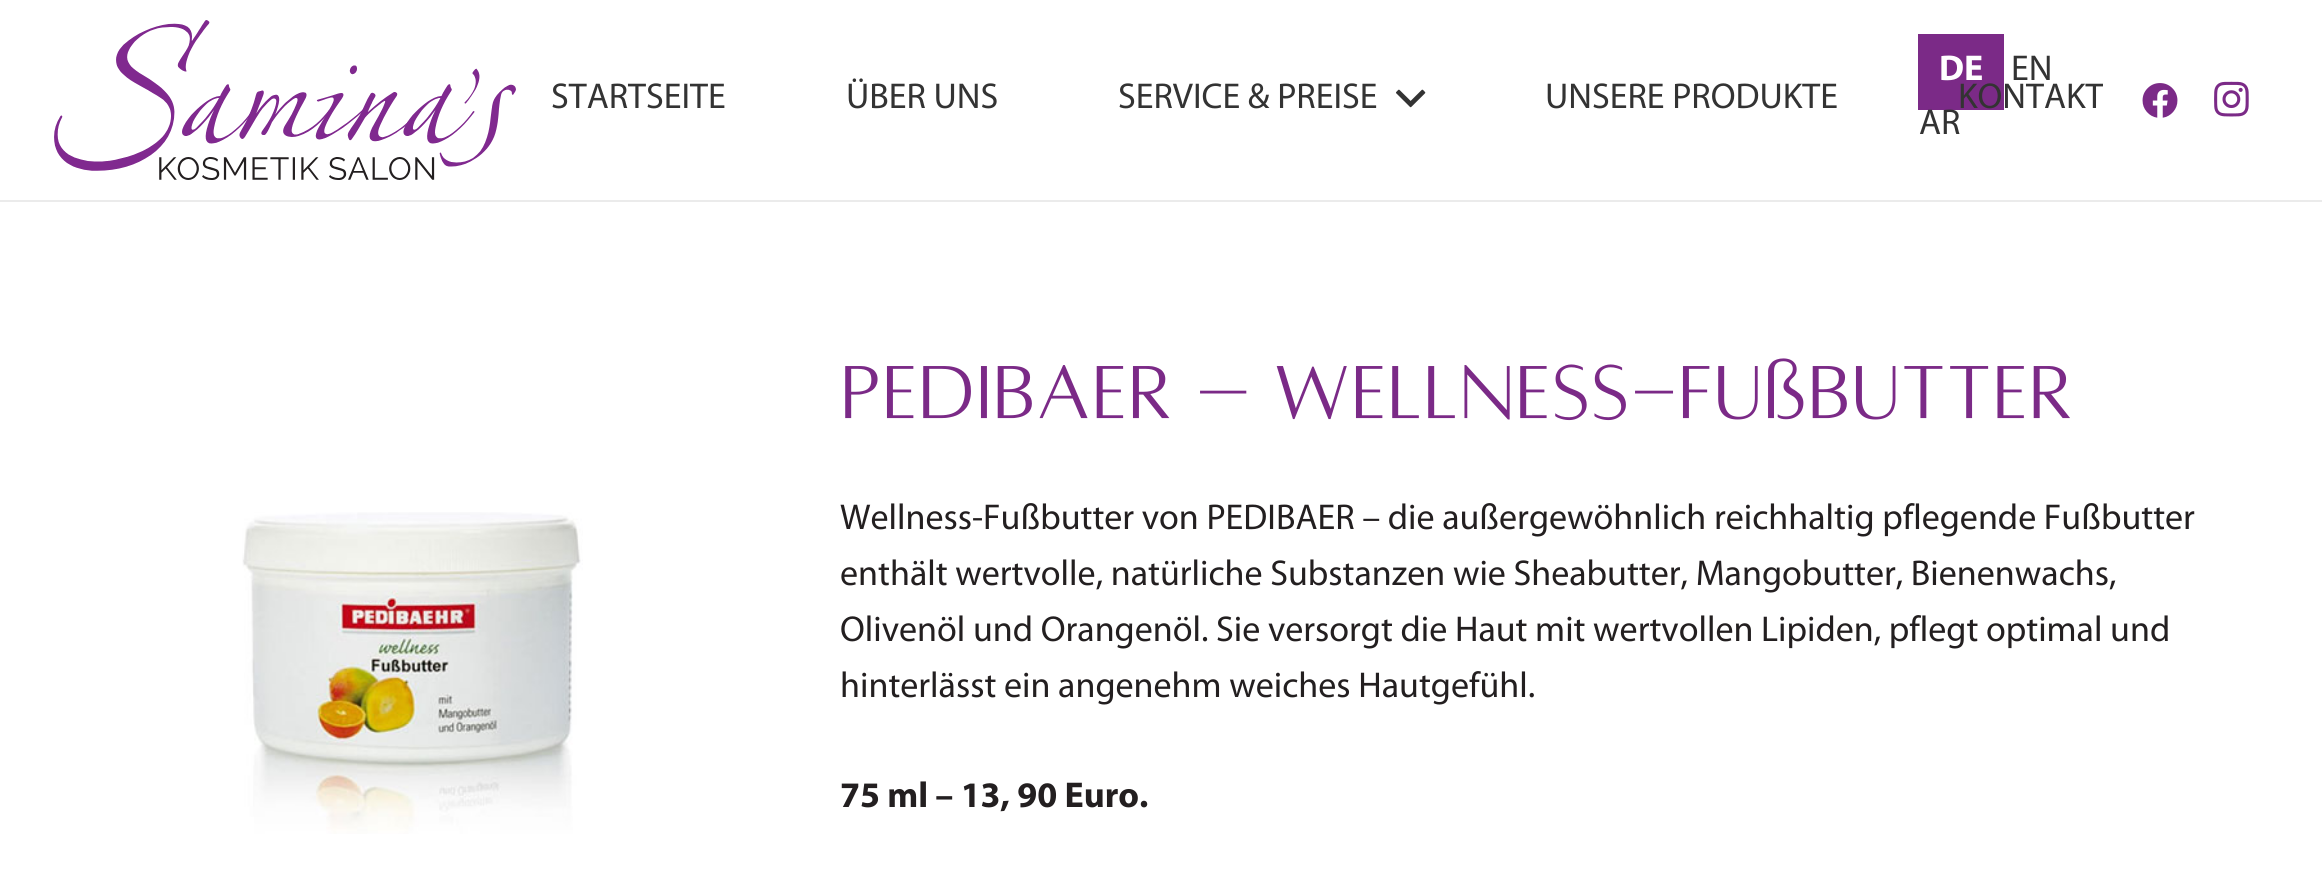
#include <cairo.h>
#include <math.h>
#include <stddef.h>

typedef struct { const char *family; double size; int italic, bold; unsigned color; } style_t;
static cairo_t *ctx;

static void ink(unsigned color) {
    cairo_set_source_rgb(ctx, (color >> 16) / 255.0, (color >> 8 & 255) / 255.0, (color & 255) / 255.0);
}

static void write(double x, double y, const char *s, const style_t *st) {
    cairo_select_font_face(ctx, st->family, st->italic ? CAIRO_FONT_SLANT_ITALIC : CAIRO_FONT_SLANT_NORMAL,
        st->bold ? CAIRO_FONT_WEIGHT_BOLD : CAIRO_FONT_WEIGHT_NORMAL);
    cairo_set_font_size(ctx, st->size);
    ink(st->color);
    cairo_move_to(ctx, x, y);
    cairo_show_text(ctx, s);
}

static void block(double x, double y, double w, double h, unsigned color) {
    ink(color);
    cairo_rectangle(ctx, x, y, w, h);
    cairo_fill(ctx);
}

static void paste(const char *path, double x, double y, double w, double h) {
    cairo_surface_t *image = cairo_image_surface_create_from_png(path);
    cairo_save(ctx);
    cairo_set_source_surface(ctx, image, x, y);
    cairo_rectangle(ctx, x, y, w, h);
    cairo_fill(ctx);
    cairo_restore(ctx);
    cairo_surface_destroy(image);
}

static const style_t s1 = {"Myriad", 36, 0, 1, 0xffffff};
static const style_t s2 = {"Myriad", 36, 0, 0, 0x333333};
static const style_t s3 = {"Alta", 82.75, 0, 0, 0x7b2a87};
static const style_t s4 = {"Myriad", 36, 0, 0, 0x231f20};
static const style_t s5 = {"Myriad", 36, 0, 1, 0x231f20};

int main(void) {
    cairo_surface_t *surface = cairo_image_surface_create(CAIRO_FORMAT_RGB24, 2322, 891);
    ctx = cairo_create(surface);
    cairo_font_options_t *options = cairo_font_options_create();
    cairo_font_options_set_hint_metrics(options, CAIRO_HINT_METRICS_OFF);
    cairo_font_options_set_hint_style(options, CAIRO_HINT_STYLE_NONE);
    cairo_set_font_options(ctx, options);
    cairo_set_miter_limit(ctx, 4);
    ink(0xffffff);
    cairo_paint(ctx);
    block(0, 200, 2322, 2, 0xebebeb);
    paste("pic1.png", 54, 20, 462, 160);
    block(1918, 34, 86, 76, 0x7b2a87);
    write(1939, 80, "DE", &s1);
    write(2011, 80, "EN", &s2);
    write(1919, 134, "AR", &s2);
    write(551, 108, "STARTSEITE", &s2);
    write(846, 108, "ÜBER UNS", &s2);
    write(1118, 108, "SERVICE & PREISE", &s2);
    paste("pic2.png", 1396, 89, 30, 19);
    write(1545, 108, "UNSERE PRODUKTE", &s2);
    write(1958, 108, "KONTAKT", &s2);
    paste("pic3.png", 2142, 83, 36, 35);
    paste("pic4.png", 2214, 81, 35, 36);
    paste("pic5.png", 242, 512, 341, 322);
    write(840, 418, "PEDIBAER – Wellness-Fußbutter", &s3);
    write(840, 529, "Wellness-Fußbutter von PEDIBAER – die außergewöhnlich reichhaltig pflegende Fußbutter", &s4);
    write(840, 585, "enthält wertvolle, natürliche Substanzen wie Sheabutter, Mangobutter, Bienenwachs,", &s4);
    write(840, 641, "Olivenöl und Orangenöl. Sie versorgt die Haut mit wertvollen Lipiden, pflegt optimal und", &s4);
    write(840, 697, "hinterlässt ein angenehm weiches Hautgefühl.", &s4);
    write(840, 807, "75 ml – 13, 90 Euro.", &s5);
    cairo_surface_write_to_png(surface, "screenshot.png");
    cairo_font_options_destroy(options);
    cairo_destroy(ctx);
    cairo_surface_destroy(surface);
    return 0;
}
